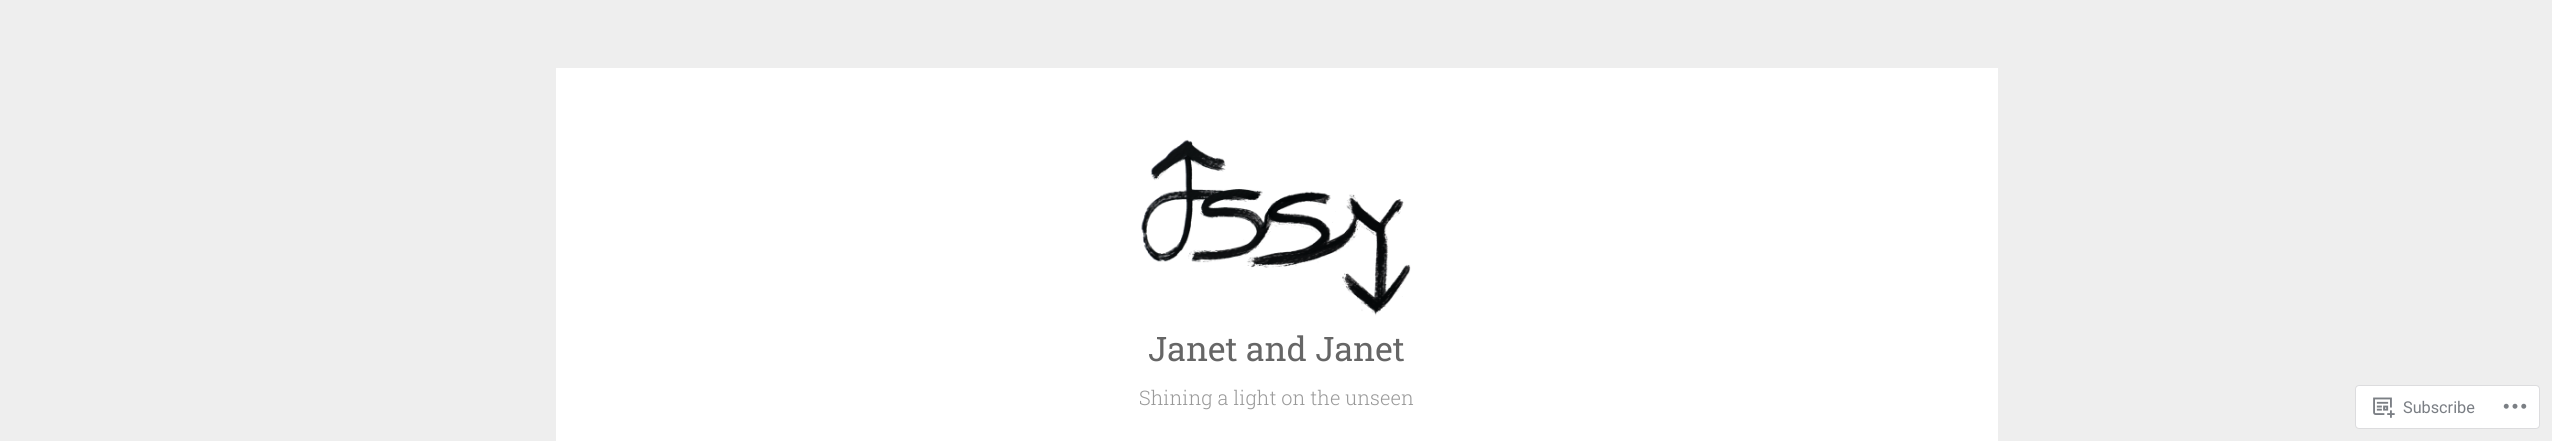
#include <cairo.h>
#include <math.h>
#include <stddef.h>

typedef struct { const char *family; double size; int italic, bold; unsigned color; } style_t;
static cairo_t *ctx;

static void ink(unsigned color) {
    cairo_set_source_rgb(ctx, (color >> 16) / 255.0, (color >> 8 & 255) / 255.0, (color & 255) / 255.0);
}

static void write(double x, double y, const char *s, const style_t *st) {
    cairo_select_font_face(ctx, st->family, st->italic ? CAIRO_FONT_SLANT_ITALIC : CAIRO_FONT_SLANT_NORMAL,
        st->bold ? CAIRO_FONT_WEIGHT_BOLD : CAIRO_FONT_WEIGHT_NORMAL);
    cairo_set_font_size(ctx, st->size);
    ink(st->color);
    cairo_move_to(ctx, x, y);
    cairo_show_text(ctx, s);
}

static void block(double x, double y, double w, double h, unsigned color) {
    ink(color);
    cairo_rectangle(ctx, x, y, w, h);
    cairo_fill(ctx);
}

static void round_path(double x, double y, double w, double h, double r) {
    cairo_new_sub_path(ctx);
    cairo_arc(ctx, x + w - r, y + h - r, r, 0, M_PI / 2);
    cairo_arc(ctx, x + r, y + h - r, r, M_PI / 2, M_PI);
    cairo_arc(ctx, x + r, y + r, r, M_PI, 1.5 * M_PI);
    cairo_arc(ctx, x + w - r, y + r, r, 1.5 * M_PI, 2 * M_PI);
    cairo_close_path(ctx);
}

static void paste(const char *path, double x, double y, double w, double h) {
    cairo_surface_t *image = cairo_image_surface_create_from_png(path);
    cairo_save(ctx);
    cairo_set_source_surface(ctx, image, x, y);
    cairo_rectangle(ctx, x, y, w, h);
    cairo_fill(ctx);
    cairo_restore(ctx);
    cairo_surface_destroy(image);
}

static const style_t s1 = {"Roboto Slab", 33.75, 0, 0, 0x666666};
static const style_t s2 = {"Roboto Slab Light", 20, 0, 0, 0x999999};
static const style_t s3 = {"Roboto", 16.25, 0, 0, 0x7a7e84};

int main(void) {
    cairo_surface_t *surface = cairo_image_surface_create(CAIRO_FORMAT_RGB24, 2552, 441);
    ctx = cairo_create(surface);
    cairo_font_options_t *options = cairo_font_options_create();
    cairo_font_options_set_hint_metrics(options, CAIRO_HINT_METRICS_OFF);
    cairo_font_options_set_hint_style(options, CAIRO_HINT_STYLE_NONE);
    cairo_set_font_options(ctx, options);
    cairo_set_miter_limit(ctx, 4);
    ink(0xeeeeee);
    cairo_paint(ctx);
    block(556, 68, 1442, 373, 0xffffff);
    paste("pic1.png", 1141, 139, 270, 177);
    write(1148, 361, "Janet and Janet", &s1);
    write(1139, 405, "Shining a light on the unseen", &s2);
    ink(0xffffff);
    round_path(2355.5, 385.5, 184, 43, 3.5);
    cairo_fill_preserve(ctx);
    ink(0xdcdcde);
    cairo_set_line_width(ctx, 1);
    cairo_stroke(ctx);
    paste("pic2.png", 2373, 397, 22, 21);
    write(2403, 413, "Subscribe", &s3);
    paste("pic3.png", 2503, 403, 24, 6);
    cairo_surface_write_to_png(surface, "screenshot.png");
    cairo_font_options_destroy(options);
    cairo_destroy(ctx);
    cairo_surface_destroy(surface);
    return 0;
}
